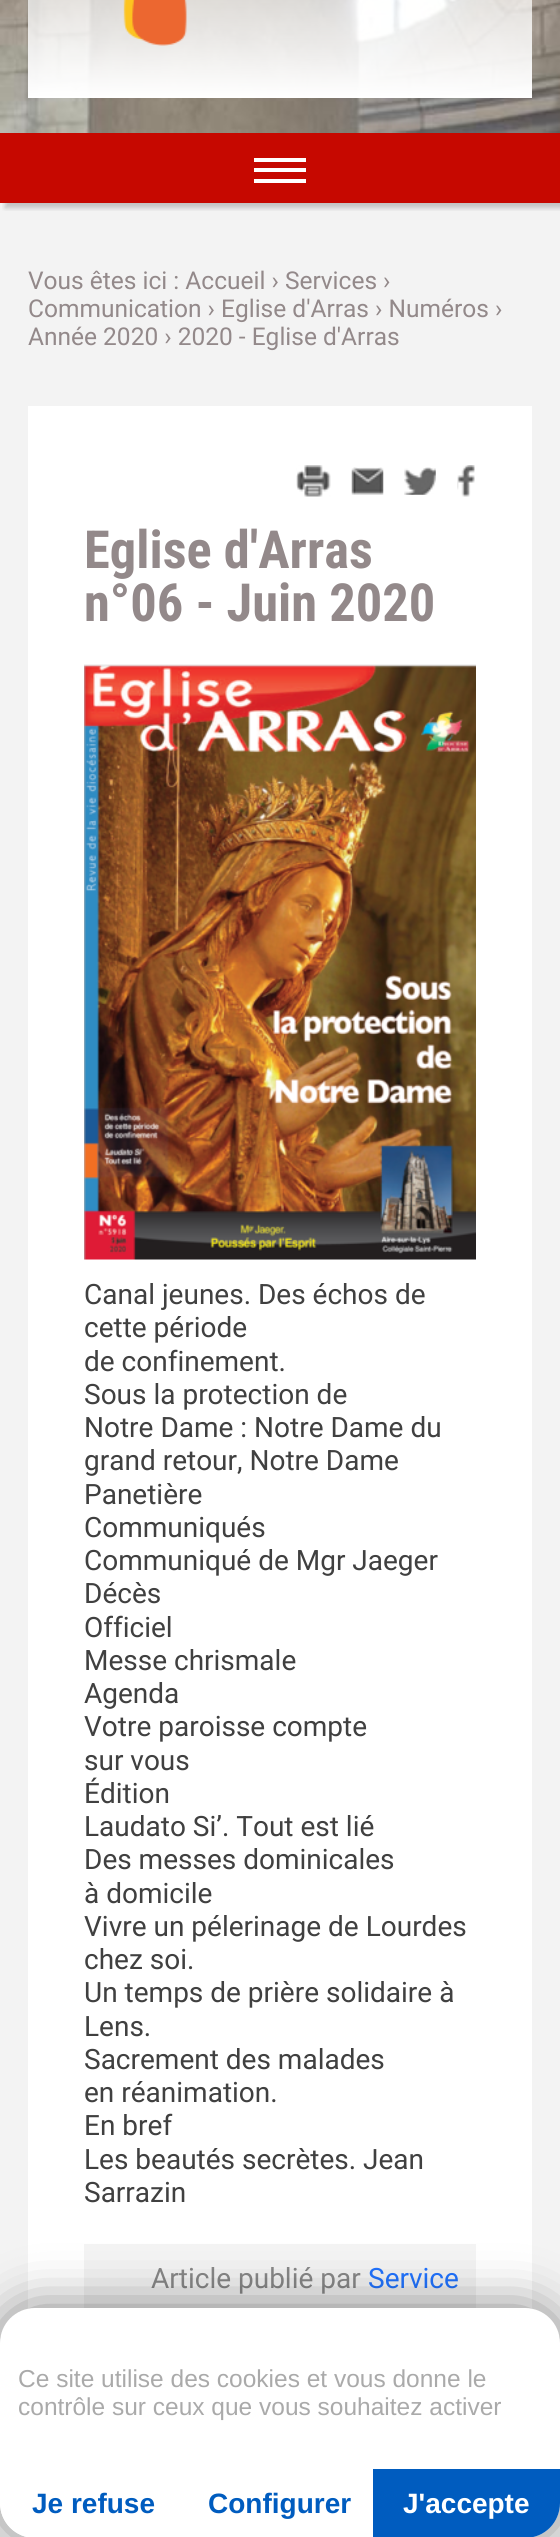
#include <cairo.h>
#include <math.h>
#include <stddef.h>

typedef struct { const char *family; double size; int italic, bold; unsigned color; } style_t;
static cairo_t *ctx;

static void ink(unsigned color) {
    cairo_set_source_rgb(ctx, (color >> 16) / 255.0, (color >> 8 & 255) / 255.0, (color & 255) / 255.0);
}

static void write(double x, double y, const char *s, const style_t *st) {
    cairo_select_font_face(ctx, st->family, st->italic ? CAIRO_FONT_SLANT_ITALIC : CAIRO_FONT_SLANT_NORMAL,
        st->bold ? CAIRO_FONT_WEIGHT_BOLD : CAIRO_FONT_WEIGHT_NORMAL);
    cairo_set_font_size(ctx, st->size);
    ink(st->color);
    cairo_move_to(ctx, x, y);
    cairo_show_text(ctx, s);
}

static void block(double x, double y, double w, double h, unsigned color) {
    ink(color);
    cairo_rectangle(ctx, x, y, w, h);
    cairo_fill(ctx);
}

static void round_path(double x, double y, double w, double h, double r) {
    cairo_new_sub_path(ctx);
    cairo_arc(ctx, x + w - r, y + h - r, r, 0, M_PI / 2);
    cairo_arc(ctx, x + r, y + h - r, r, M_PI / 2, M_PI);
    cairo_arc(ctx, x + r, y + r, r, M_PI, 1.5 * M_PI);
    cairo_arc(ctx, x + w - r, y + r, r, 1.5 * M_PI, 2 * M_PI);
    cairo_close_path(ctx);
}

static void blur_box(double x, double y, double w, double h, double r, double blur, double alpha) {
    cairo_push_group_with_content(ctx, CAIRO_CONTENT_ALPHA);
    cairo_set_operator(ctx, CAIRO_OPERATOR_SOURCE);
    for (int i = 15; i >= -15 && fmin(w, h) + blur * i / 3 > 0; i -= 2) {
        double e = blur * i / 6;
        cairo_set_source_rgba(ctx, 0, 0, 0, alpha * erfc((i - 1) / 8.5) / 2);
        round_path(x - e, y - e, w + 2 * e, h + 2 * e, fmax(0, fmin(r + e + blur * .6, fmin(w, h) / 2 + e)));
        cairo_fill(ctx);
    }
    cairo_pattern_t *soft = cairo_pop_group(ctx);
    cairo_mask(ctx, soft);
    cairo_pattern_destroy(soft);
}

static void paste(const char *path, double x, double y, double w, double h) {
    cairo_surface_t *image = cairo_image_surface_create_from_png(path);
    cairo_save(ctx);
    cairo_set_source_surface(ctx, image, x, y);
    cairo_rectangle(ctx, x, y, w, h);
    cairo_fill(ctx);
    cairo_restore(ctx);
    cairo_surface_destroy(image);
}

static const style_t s1 = {"Roboto", 24.5, 0, 0, 0x93898a};
static const style_t s2 = {"Roboto Condensed", 52.5, 0, 1, 0x93898a};
static const style_t s3 = {"Roboto", 28, 0, 0, 0x404040};
static const style_t s4 = {"Roboto", 28, 0, 0, 0x888888};
static const style_t s5 = {"Roboto", 28, 0, 0, 0x2173ff};
static const style_t s6 = {"Liberation Sans", 24.5, 0, 0, 0xaaaaaa};
static const style_t s7 = {"Liberation Sans", 28, 0, 1, 0x005cbf};
static const style_t s8 = {"Liberation Sans", 28, 0, 1, 0xffffff};

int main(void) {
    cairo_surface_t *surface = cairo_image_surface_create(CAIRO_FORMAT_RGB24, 560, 2537);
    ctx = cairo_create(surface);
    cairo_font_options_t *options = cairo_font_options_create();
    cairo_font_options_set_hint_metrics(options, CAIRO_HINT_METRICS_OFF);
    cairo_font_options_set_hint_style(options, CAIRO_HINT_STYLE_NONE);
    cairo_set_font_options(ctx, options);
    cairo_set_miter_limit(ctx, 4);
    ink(0xf3f3f3);
    cairo_paint(ctx);
    paste("pic1.png", 0, 0, 560, 133);
    paste("pic2.png", 123, 0, 64, 46);
    block(0, 133, 560, 70, 0xc60800);
    cairo_save(ctx);
    cairo_rectangle(ctx, 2, 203, 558, 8);
    cairo_clip(ctx);
    ink(0x000000);
    blur_box(5, 138, 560, 70, 0, 2.5, 0.2);
    cairo_restore(ctx);
    block(254, 168, 52, 4, 0xffffff);
    block(254, 158, 52, 4, 0xffffff);
    block(254, 179, 52, 4, 0xffffff);
    write(28, 289, "Vous êtes ici : Accueil › Services ›", &s1);
    write(28, 317, "Communication › Eglise d'Arras › Numéros ›", &s1);
    write(28, 345, "Année 2020 › 2020 - Eglise d'Arras", &s1);
    block(28, 406, 504, 1903, 0xffffff);
    paste("pic3.png", 296, 465, 35, 32);
    paste("pic4.png", 351, 467, 33, 28);
    paste("pic5.png", 404, 467, 32, 28);
    paste("pic6.png", 457, 465, 18, 32);
    write(84, 568, "Eglise d'Arras", &s2);
    write(84, 621, "n°06 - Juin 2020", &s2);
    paste("pic7.png", 84, 664, 392, 596);
    write(84, 1304, "Canal jeunes. Des échos de", &s3);
    write(84, 1337, "cette période", &s3);
    write(84, 1371, "de confinement.", &s3);
    write(84, 1404, "Sous la protection de", &s3);
    write(84, 1437, "Notre Dame : Notre Dame du", &s3);
    write(84, 1470, "grand retour, Notre Dame", &s3);
    write(84, 1504, "Panetière", &s3);
    write(84, 1537, "Communiqués", &s3);
    write(84, 1570, "Communiqué de Mgr Jaeger", &s3);
    write(84, 1603, "Décès", &s3);
    write(84, 1637, "Officiel", &s3);
    write(84, 1670, "Messe chrismale", &s3);
    write(84, 1703, "Agenda", &s3);
    write(84, 1736, "Votre paroisse compte", &s3);
    write(84, 1770, "sur vous", &s3);
    write(84, 1803, "Édition", &s3);
    write(84, 1836, "Laudato Si’. Tout est lié", &s3);
    write(84, 1869, "Des messes dominicales", &s3);
    write(84, 1903, "à domicile", &s3);
    write(84, 1936, "Vivre un pélerinage de Lourdes", &s3);
    write(84, 1969, "chez soi.", &s3);
    write(84, 2002, "Un temps de prière solidaire à", &s3);
    write(84, 2036, "Lens.", &s3);
    write(84, 2069, "Sacrement des malades", &s3);
    write(84, 2102, "en réanimation.", &s3);
    write(84, 2135, "En bref", &s3);
    write(84, 2169, "Les beautés secrètes. Jean", &s3);
    write(84, 2202, "Sarrazin", &s3);
    block(84, 2244, 392, 64, 0xf4f4f4);
    write(151, 2288, "Article publié par", &s4);
    write(368, 2288, "Service", &s5);
    ink(0x000000);
    blur_box(0, 2308, 560, 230, 35, 26, 0.5);
    ink(0xffffff);
    round_path(0, 2308, 560, 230, 35);
    cairo_fill(ctx);
    write(18, 2387, "Ce site utilise des cookies et vous donne le", &s6);
    write(18, 2415, "contrôle sur ceux que vous souhaitez activer", &s6);
    ink(0xffffff);
    cairo_new_path(ctx);
    cairo_move_to(ctx, 0, 2469);
    cairo_line_to(ctx, 187, 2469);
    cairo_line_to(ctx, 187, 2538);
    cairo_line_to(ctx, 35, 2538);
    cairo_curve_to(ctx, 15.5, 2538, 0, 2522.5, 0, 2503);
    cairo_close_path(ctx);
    cairo_fill(ctx);
    write(32, 2513, "Je refuse", &s7);
    write(208, 2513, "Configurer", &s7);
    cairo_new_path(ctx);
    cairo_move_to(ctx, 373, 2469);
    cairo_line_to(ctx, 560, 2469);
    cairo_line_to(ctx, 560, 2503);
    cairo_curve_to(ctx, 560, 2522.5, 544.5, 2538, 525, 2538);
    cairo_line_to(ctx, 373, 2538);
    cairo_close_path(ctx);
    cairo_fill(ctx);
    write(403, 2513, "J'accepte", &s8);
    cairo_surface_write_to_png(surface, "screenshot.png");
    cairo_font_options_destroy(options);
    cairo_destroy(ctx);
    cairo_surface_destroy(surface);
    return 0;
}
